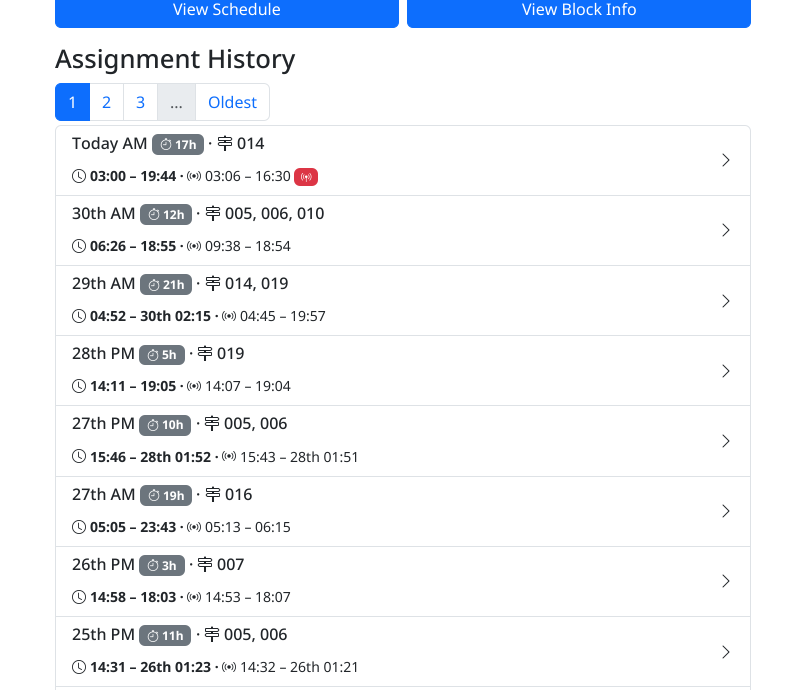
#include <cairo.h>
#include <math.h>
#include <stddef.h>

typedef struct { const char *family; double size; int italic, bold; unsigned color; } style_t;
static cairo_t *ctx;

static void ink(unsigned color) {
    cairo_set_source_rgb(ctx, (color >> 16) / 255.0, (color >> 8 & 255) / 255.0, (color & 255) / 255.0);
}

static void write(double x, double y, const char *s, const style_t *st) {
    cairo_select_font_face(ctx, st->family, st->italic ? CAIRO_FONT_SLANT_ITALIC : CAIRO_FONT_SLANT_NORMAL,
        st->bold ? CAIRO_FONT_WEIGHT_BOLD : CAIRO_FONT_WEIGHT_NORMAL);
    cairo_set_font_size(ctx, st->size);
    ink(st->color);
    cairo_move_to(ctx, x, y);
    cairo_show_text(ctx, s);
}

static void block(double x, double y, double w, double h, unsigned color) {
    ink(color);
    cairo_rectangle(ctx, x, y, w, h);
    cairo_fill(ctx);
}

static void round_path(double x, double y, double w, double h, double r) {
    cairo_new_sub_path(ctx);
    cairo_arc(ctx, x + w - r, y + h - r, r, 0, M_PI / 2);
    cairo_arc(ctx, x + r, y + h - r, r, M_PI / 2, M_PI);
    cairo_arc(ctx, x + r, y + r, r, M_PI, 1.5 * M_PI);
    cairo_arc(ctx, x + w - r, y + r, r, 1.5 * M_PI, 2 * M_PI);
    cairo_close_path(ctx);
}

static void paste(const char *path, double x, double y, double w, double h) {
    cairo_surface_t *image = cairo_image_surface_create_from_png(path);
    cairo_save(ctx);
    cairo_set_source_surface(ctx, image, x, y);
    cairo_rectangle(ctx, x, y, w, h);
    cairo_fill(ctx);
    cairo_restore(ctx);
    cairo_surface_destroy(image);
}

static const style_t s1 = {"Noto Sans", 16, 0, 0, 0xffffff};
static const style_t s2 = {"Noto Sans Medium", 25.6, 0, 0, 0x212529};
static const style_t s3 = {"Noto Sans", 16, 0, 0, 0x0d6efd};
static const style_t s4 = {"Noto Sans", 16, 0, 0, 0x53575b};
static const style_t s5 = {"Noto Sans Medium", 16, 0, 0, 0x212529};
static const style_t s6 = {"Noto Sans", 12, 0, 1, 0xffffff};
static const style_t s7 = {"Noto Sans", 14, 0, 1, 0x212529};
static const style_t s8 = {"Noto Sans", 14, 0, 0, 0x212529};

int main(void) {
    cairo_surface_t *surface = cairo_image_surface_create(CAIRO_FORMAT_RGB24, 806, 690);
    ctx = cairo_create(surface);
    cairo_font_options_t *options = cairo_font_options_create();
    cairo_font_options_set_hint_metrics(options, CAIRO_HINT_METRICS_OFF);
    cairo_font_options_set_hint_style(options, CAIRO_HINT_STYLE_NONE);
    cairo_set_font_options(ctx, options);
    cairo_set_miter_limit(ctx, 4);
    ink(0xffffff);
    cairo_paint(ctx);
    ink(0x0d6efd);
    round_path(55.5, -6.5, 343, 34, 5.5);
    cairo_fill_preserve(ctx);
    cairo_set_line_width(ctx, 1);
    cairo_stroke(ctx);
    write(173, 15, "View Schedule", &s1);
    ink(0x0d6efd);
    round_path(407.5, -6.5, 343, 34, 5.5);
    cairo_fill_preserve(ctx);
    cairo_stroke(ctx);
    write(522, 15, "View Block Info", &s1);
    write(55, 68, "Assignment History", &s2);
    cairo_rectangle(ctx, 89.5, 83.5, 34, 37);
    ink(0xdee2e6);
    cairo_stroke(ctx);
    ink(0x0d6efd);
    cairo_new_path(ctx);
    cairo_move_to(ctx, 61, 83.5);
    cairo_line_to(ctx, 89.5, 83.5);
    cairo_line_to(ctx, 89.5, 120.5);
    cairo_line_to(ctx, 61, 120.5);
    cairo_curve_to(ctx, 58, 120.5, 55.5, 118, 55.5, 115);
    cairo_line_to(ctx, 55.5, 89);
    cairo_curve_to(ctx, 55.5, 86, 58, 83.5, 61, 83.5);
    cairo_close_path(ctx);
    cairo_fill_preserve(ctx);
    cairo_stroke(ctx);
    write(68, 108, "1", &s1);
    write(102, 108, "2", &s3);
    cairo_rectangle(ctx, 123.5, 83.5, 34, 37);
    ink(0xdee2e6);
    cairo_stroke(ctx);
    write(136, 108, "3", &s3);
    ink(0xe9ecef);
    cairo_rectangle(ctx, 157.5, 83.5, 38, 37);
    cairo_fill_preserve(ctx);
    ink(0xdee2e6);
    cairo_stroke(ctx);
    write(170, 108, "...", &s4);
    ink(0xffffff);
    cairo_new_path(ctx);
    cairo_move_to(ctx, 195.5, 83.5);
    cairo_line_to(ctx, 264, 83.5);
    cairo_curve_to(ctx, 267, 83.5, 269.5, 86, 269.5, 89);
    cairo_line_to(ctx, 269.5, 115);
    cairo_curve_to(ctx, 269.5, 118, 267, 120.5, 264, 120.5);
    cairo_line_to(ctx, 195.5, 120.5);
    cairo_close_path(ctx);
    cairo_fill_preserve(ctx);
    ink(0xdee2e6);
    cairo_stroke(ctx);
    write(208, 108, "Oldest", &s3);
    cairo_new_path(ctx);
    cairo_move_to(ctx, 61, 125.5);
    cairo_line_to(ctx, 745, 125.5);
    cairo_curve_to(ctx, 748, 125.5, 750.5, 128, 750.5, 131);
    cairo_line_to(ctx, 750.5, 195.5);
    cairo_line_to(ctx, 55.5, 195.5);
    cairo_line_to(ctx, 55.5, 131);
    cairo_curve_to(ctx, 55.5, 128, 58, 125.5, 61, 125.5);
    cairo_close_path(ctx);
    ink(0xdee2e6);
    cairo_stroke(ctx);
    write(72, 149, "Today AM", &s5);
    ink(0x6c757d);
    round_path(152, 134, 52, 21, 6);
    cairo_fill(ctx);
    paste("pic1.png", 160, 138, 12, 12);
    write(175, 149, "17h", &s6);
    write(208, 149, "·", &s5);
    paste("pic2.png", 217, 135, 16, 16);
    write(237, 149, "014", &s5);
    paste("pic3.png", 72, 169, 14, 14);
    write(90, 181, "03:00 – 19:44 ·", &s7);
    paste("pic4.png", 187, 171, 14, 10);
    write(205, 181, "03:06 – 16:30", &s8);
    ink(0xdc3545);
    round_path(294, 168, 24, 18, 6);
    cairo_fill(ctx);
    paste("pic5.png", 301, 173, 11, 9);
    paste("pic6.png", 722, 153, 8, 14);
    block(750, 196, 1, 494, 0xdee2e6);
    block(55, 265, 696, 1, 0xdee2e6);
    block(55, 196, 1, 70, 0xdee2e6);
    write(72, 219, "30th AM", &s5);
    ink(0x6c757d);
    round_path(140, 204, 52, 21, 6);
    cairo_fill(ctx);
    paste("pic1.png", 148, 208, 12, 12);
    write(163, 219, "12h", &s6);
    write(196, 219, "·", &s5);
    paste("pic2.png", 205, 205, 16, 16);
    write(225, 219, "005, 006, 010", &s5);
    paste("pic3.png", 72, 239, 14, 14);
    write(90, 251, "06:26 – 18:55 ·", &s7);
    paste("pic4.png", 187, 241, 14, 10);
    write(205, 251, "09:38 – 18:54", &s8);
    paste("pic6.png", 722, 223, 8, 14);
    block(55, 335, 696, 1, 0xdee2e6);
    block(55, 266, 1, 70, 0xdee2e6);
    write(72, 289, "29th AM", &s5);
    ink(0x6c757d);
    round_path(140, 274, 52, 21, 6);
    cairo_fill(ctx);
    paste("pic1.png", 148, 279, 12, 12);
    write(163, 289, "21h", &s6);
    write(196, 289, "·", &s5);
    paste("pic2.png", 205, 275, 16, 16);
    write(225, 289, "014, 019", &s5);
    paste("pic3.png", 72, 309, 14, 14);
    write(90, 321, "04:52 – 30th 02:15 ·", &s7);
    paste("pic4.png", 222, 311, 14, 10);
    write(240, 321, "04:45 – 19:57", &s8);
    paste("pic6.png", 722, 294, 8, 14);
    block(55, 405, 696, 1, 0xdee2e6);
    block(55, 336, 1, 70, 0xdee2e6);
    write(72, 359, "28th PM", &s5);
    ink(0x6c757d);
    round_path(139, 345, 46, 20, 6);
    cairo_fill(ctx);
    paste("pic1.png", 147, 349, 12, 12);
    write(162, 359, "5h", &s6);
    write(189, 359, "·", &s5);
    paste("pic2.png", 197, 345, 16, 16);
    write(217, 359, "019", &s5);
    paste("pic3.png", 72, 379, 14, 14);
    write(90, 391, "14:11 – 19:05 ·", &s7);
    paste("pic4.png", 187, 381, 14, 10);
    write(205, 391, "14:07 – 19:04", &s8);
    paste("pic6.png", 722, 364, 8, 14);
    block(55, 476, 696, 1, 0xdee2e6);
    block(55, 406, 1, 71, 0xdee2e6);
    write(72, 429, "27th PM", &s5);
    ink(0x6c757d);
    round_path(139, 415, 52, 21, 6);
    cairo_fill(ctx);
    paste("pic1.png", 147, 419, 12, 12);
    write(162, 429, "10h", &s6);
    write(196, 429, "·", &s5);
    paste("pic2.png", 204, 415, 16, 16);
    write(224, 429, "005, 006", &s5);
    paste("pic3.png", 72, 449, 14, 14);
    write(90, 462, "15:46 – 28th 01:52 ·", &s7);
    paste("pic4.png", 222, 451, 14, 10);
    write(240, 462, "15:43 – 28th 01:51", &s8);
    paste("pic6.png", 722, 434, 8, 14);
    block(55, 546, 696, 1, 0xdee2e6);
    block(55, 477, 1, 70, 0xdee2e6);
    write(72, 500, "27th AM", &s5);
    ink(0x6c757d);
    round_path(140, 485, 52, 21, 6);
    cairo_fill(ctx);
    paste("pic1.png", 148, 489, 12, 12);
    write(163, 500, "19h", &s6);
    write(196, 500, "·", &s5);
    paste("pic2.png", 205, 486, 16, 16);
    write(225, 500, "016", &s5);
    paste("pic3.png", 72, 520, 14, 14);
    write(90, 532, "05:05 – 23:43 ·", &s7);
    paste("pic4.png", 187, 522, 14, 10);
    write(205, 532, "05:13 – 06:15", &s8);
    paste("pic6.png", 722, 504, 8, 14);
    block(55, 616, 696, 1, 0xdee2e6);
    block(55, 547, 1, 70, 0xdee2e6);
    write(72, 570, "26th PM", &s5);
    ink(0x6c757d);
    round_path(139, 555, 46, 21, 6);
    cairo_fill(ctx);
    paste("pic1.png", 147, 559, 12, 12);
    write(162, 570, "3h", &s6);
    write(189, 570, "·", &s5);
    paste("pic2.png", 197, 556, 16, 16);
    write(217, 570, "007", &s5);
    paste("pic3.png", 72, 590, 14, 14);
    write(90, 602, "14:58 – 18:03 ·", &s7);
    paste("pic4.png", 187, 592, 14, 10);
    write(205, 602, "14:53 – 18:07", &s8);
    paste("pic6.png", 722, 574, 8, 14);
    block(55, 686, 696, 1, 0xdee2e6);
    block(55, 617, 1, 73, 0xdee2e6);
    write(72, 640, "25th PM", &s5);
    ink(0x6c757d);
    round_path(139, 625, 52, 21, 6);
    cairo_fill(ctx);
    paste("pic1.png", 147, 630, 12, 12);
    write(162, 640, "11h", &s6);
    write(196, 640, "·", &s5);
    paste("pic2.png", 204, 626, 16, 16);
    write(224, 640, "005, 006", &s5);
    paste("pic3.png", 72, 660, 14, 14);
    write(90, 672, "14:31 – 26th 01:23 ·", &s7);
    paste("pic4.png", 222, 662, 14, 10);
    write(240, 672, "14:32 – 26th 01:21", &s8);
    paste("pic6.png", 722, 645, 8, 14);
    cairo_surface_write_to_png(surface, "screenshot.png");
    cairo_font_options_destroy(options);
    cairo_destroy(ctx);
    cairo_surface_destroy(surface);
    return 0;
}
